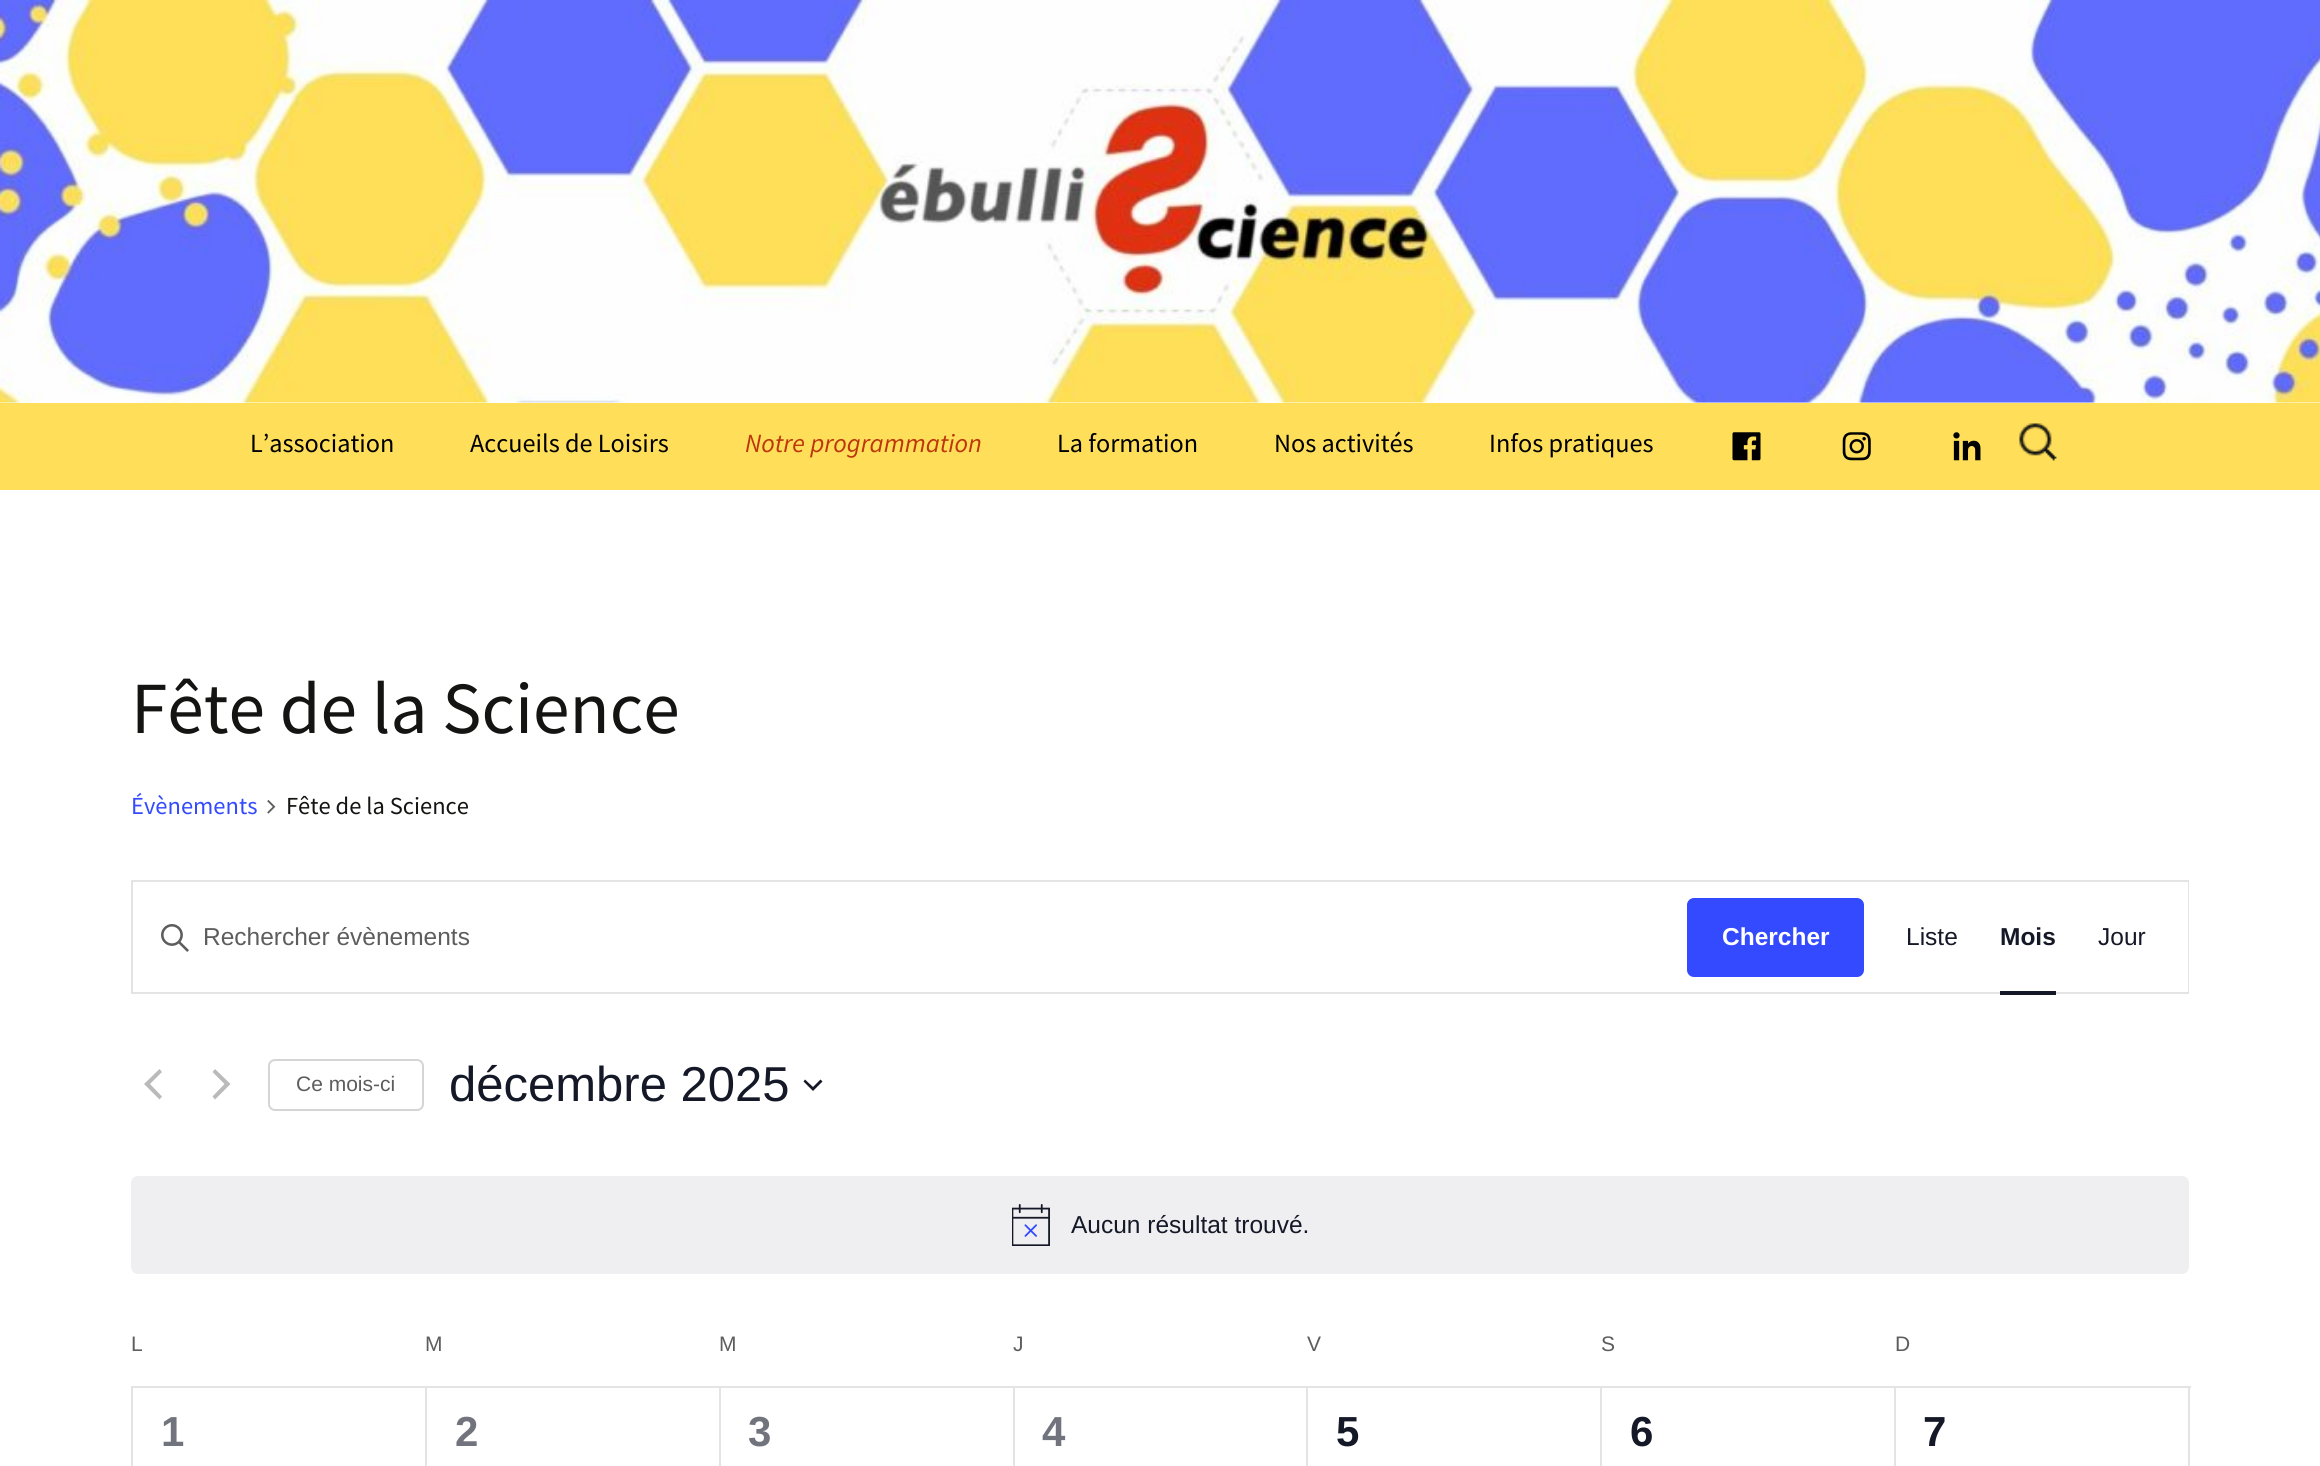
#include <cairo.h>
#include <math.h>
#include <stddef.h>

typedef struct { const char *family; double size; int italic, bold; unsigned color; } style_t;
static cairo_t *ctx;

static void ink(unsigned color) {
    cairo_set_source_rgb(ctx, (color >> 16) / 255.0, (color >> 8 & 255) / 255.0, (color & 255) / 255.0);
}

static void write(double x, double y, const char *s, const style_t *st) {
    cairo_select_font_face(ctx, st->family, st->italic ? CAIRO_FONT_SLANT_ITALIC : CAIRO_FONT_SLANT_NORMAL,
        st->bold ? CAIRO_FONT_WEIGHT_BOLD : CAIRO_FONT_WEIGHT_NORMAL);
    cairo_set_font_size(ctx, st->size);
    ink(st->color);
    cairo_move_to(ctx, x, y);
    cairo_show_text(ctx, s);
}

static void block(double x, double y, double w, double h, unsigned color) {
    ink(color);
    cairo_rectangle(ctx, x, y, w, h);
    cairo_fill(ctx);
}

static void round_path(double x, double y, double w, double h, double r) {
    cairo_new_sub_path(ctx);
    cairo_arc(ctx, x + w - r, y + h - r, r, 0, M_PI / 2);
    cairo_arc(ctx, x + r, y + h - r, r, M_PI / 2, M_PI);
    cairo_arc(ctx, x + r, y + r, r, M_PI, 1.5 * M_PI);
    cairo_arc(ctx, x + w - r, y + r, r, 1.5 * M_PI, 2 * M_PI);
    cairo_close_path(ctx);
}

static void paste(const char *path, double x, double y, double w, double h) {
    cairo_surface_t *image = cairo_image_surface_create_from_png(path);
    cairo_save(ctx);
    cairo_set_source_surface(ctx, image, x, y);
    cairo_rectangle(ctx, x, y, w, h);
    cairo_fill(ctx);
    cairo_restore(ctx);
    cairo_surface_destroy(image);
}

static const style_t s1 = {"Source Sans Pro", 26.25, 0, 0, 0x000000};
static const style_t s2 = {"Source Sans Pro", 26.25, 1, 0, 0xbc360a};
static const style_t s3 = {"Source Sans Pro", 73.5, 0, 0, 0x141412};
static const style_t s4 = {"Source Sans Pro", 24.5, 0, 0, 0x334aff};
static const style_t s5 = {"Source Sans Pro", 24.5, 0, 0, 0x141412};
static const style_t s6 = {"Liberation Sans", 24.5, 0, 0, 0x5d5d5d};
static const style_t s7 = {"Liberation Sans", 24.5, 0, 1, 0xffffff};
static const style_t s8 = {"Liberation Sans", 24.5, 0, 0, 0x141827};
static const style_t s9 = {"Liberation Sans", 24.5, 0, 1, 0x141827};
static const style_t s10 = {"Liberation Sans", 21, 0, 0, 0x5d5d5d};
static const style_t s11 = {"Liberation Sans", 49, 0, 0, 0x141827};
static const style_t s12 = {"Liberation Sans", 42, 0, 1, 0x72747d};
static const style_t s13 = {"Liberation Sans", 42, 0, 1, 0x141827};

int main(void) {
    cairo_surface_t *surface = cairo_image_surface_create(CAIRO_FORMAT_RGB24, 2320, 1466);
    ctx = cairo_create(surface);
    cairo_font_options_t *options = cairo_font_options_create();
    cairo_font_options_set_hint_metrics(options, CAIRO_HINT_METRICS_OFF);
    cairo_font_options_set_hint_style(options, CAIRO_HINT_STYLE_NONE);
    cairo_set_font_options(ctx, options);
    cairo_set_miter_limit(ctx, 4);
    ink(0xffffff);
    cairo_paint(ctx);
    paste("pic1.png", 0, 0, 2320, 403);
    block(0, 403, 2320, 87, 0xffde59);
    write(250, 452, "L’association", &s1);
    write(470, 452, "Accueils de Loisirs", &s1);
    write(745, 452, "Notre programmation", &s2);
    write(1057, 452, "La formation", &s1);
    write(1274, 452, "Nos activités", &s1);
    write(1489, 452, "Infos pratiques", &s1);
    paste("pic2.png", 1732, 432, 29, 29);
    paste("pic3.png", 1842, 432, 29, 29);
    paste("pic4.png", 1953, 432, 28, 29);
    paste("pic5.png", 2019, 423, 38, 38);
    write(131, 733, "Fête de la Science", &s3);
    write(131, 814, "Évènements", &s4);
    paste("pic6.png", 267, 800, 9, 14);
    write(286, 814, "Fête de la Science", &s5);
    cairo_rectangle(ctx, 132, 881, 2056, 112);
    ink(0xe4e4e4);
    cairo_stroke(ctx);
    paste("pic7.png", 161, 924, 28, 28);
    write(203, 945, "Rechercher évènements", &s6);
    ink(0x334aff);
    round_path(1687, 898, 177, 79, 7);
    cairo_fill(ctx);
    write(1722, 945, "Chercher", &s7);
    block(2187, 882, 1, 110, 0xffffff);
    write(1906, 945, "Liste", &s8);
    write(2000, 945, "Mois", &s9);
    block(2000, 991, 56, 4, 0x141827);
    write(2098, 945, "Jour", &s8);
    ink(0xbababa);
    cairo_new_path(ctx);
    cairo_move_to(ctx, 162, 1096.5);
    cairo_line_to(ctx, 159.5, 1099.5);
    cairo_line_to(ctx, 144, 1084);
    cairo_line_to(ctx, 159.5, 1069);
    cairo_line_to(ctx, 162, 1072);
    cairo_line_to(ctx, 150, 1084);
    cairo_close_path(ctx);
    cairo_fill(ctx);
    cairo_new_path(ctx);
    cairo_move_to(ctx, 212.5, 1072);
    cairo_line_to(ctx, 215, 1069);
    cairo_line_to(ctx, 230.5, 1084);
    cairo_line_to(ctx, 215, 1099.5);
    cairo_line_to(ctx, 212.5, 1096.5);
    cairo_line_to(ctx, 224.5, 1084);
    cairo_close_path(ctx);
    cairo_fill(ctx);
    round_path(269, 1060, 154, 50, 6);
    ink(0xd5d5d5);
    cairo_stroke(ctx);
    write(296, 1091, "Ce mois-ci", &s10);
    write(449, 1101, "décembre 2025", &s11);
    cairo_set_fill_rule(ctx, CAIRO_FILL_RULE_EVEN_ODD);
    cairo_new_path(ctx);
    cairo_move_to(ctx, 805, 1079.5);
    cairo_line_to(ctx, 813, 1087);
    cairo_line_to(ctx, 820.5, 1079.5);
    cairo_line_to(ctx, 822.5, 1081.5);
    cairo_line_to(ctx, 813, 1091);
    cairo_line_to(ctx, 803.5, 1081.5);
    cairo_close_path(ctx);
    cairo_fill(ctx);
    ink(0xefeff1);
    round_path(131, 1176, 2058, 98, 7);
    cairo_fill(ctx);
    paste("pic8.png", 1012, 1204, 38, 42);
    write(1071, 1233, "Aucun résultat trouvé.", &s8);
    write(131, 1351, "L", &s10);
    write(425, 1351, "M", &s10);
    write(719, 1351, "M", &s10);
    write(1013, 1351, "J", &s10);
    write(1307, 1351, "V", &s10);
    write(1601, 1351, "S", &s10);
    write(1895, 1351, "D", &s10);
    block(131, 1386, 2060, 2, 0xe4e4e4);
    block(131, 1388, 2, 78, 0xe4e4e4);
    block(425, 1388, 2, 78, 0xe4e4e4);
    write(161, 1446, "1", &s12);
    block(719, 1388, 2, 78, 0xe4e4e4);
    write(455, 1446, "2", &s12);
    block(1013, 1388, 2, 78, 0xe4e4e4);
    write(748, 1446, "3", &s12);
    block(1306, 1388, 2, 78, 0xe4e4e4);
    write(1042, 1446, "4", &s12);
    block(1600, 1388, 2, 78, 0xe4e4e4);
    write(1336, 1446, "5", &s13);
    block(1894, 1388, 2, 78, 0xe4e4e4);
    write(1630, 1446, "6", &s13);
    block(2188, 1388, 2, 78, 0xe4e4e4);
    write(1923, 1446, "7", &s13);
    cairo_surface_write_to_png(surface, "screenshot.png");
    cairo_font_options_destroy(options);
    cairo_destroy(ctx);
    cairo_surface_destroy(surface);
    return 0;
}
